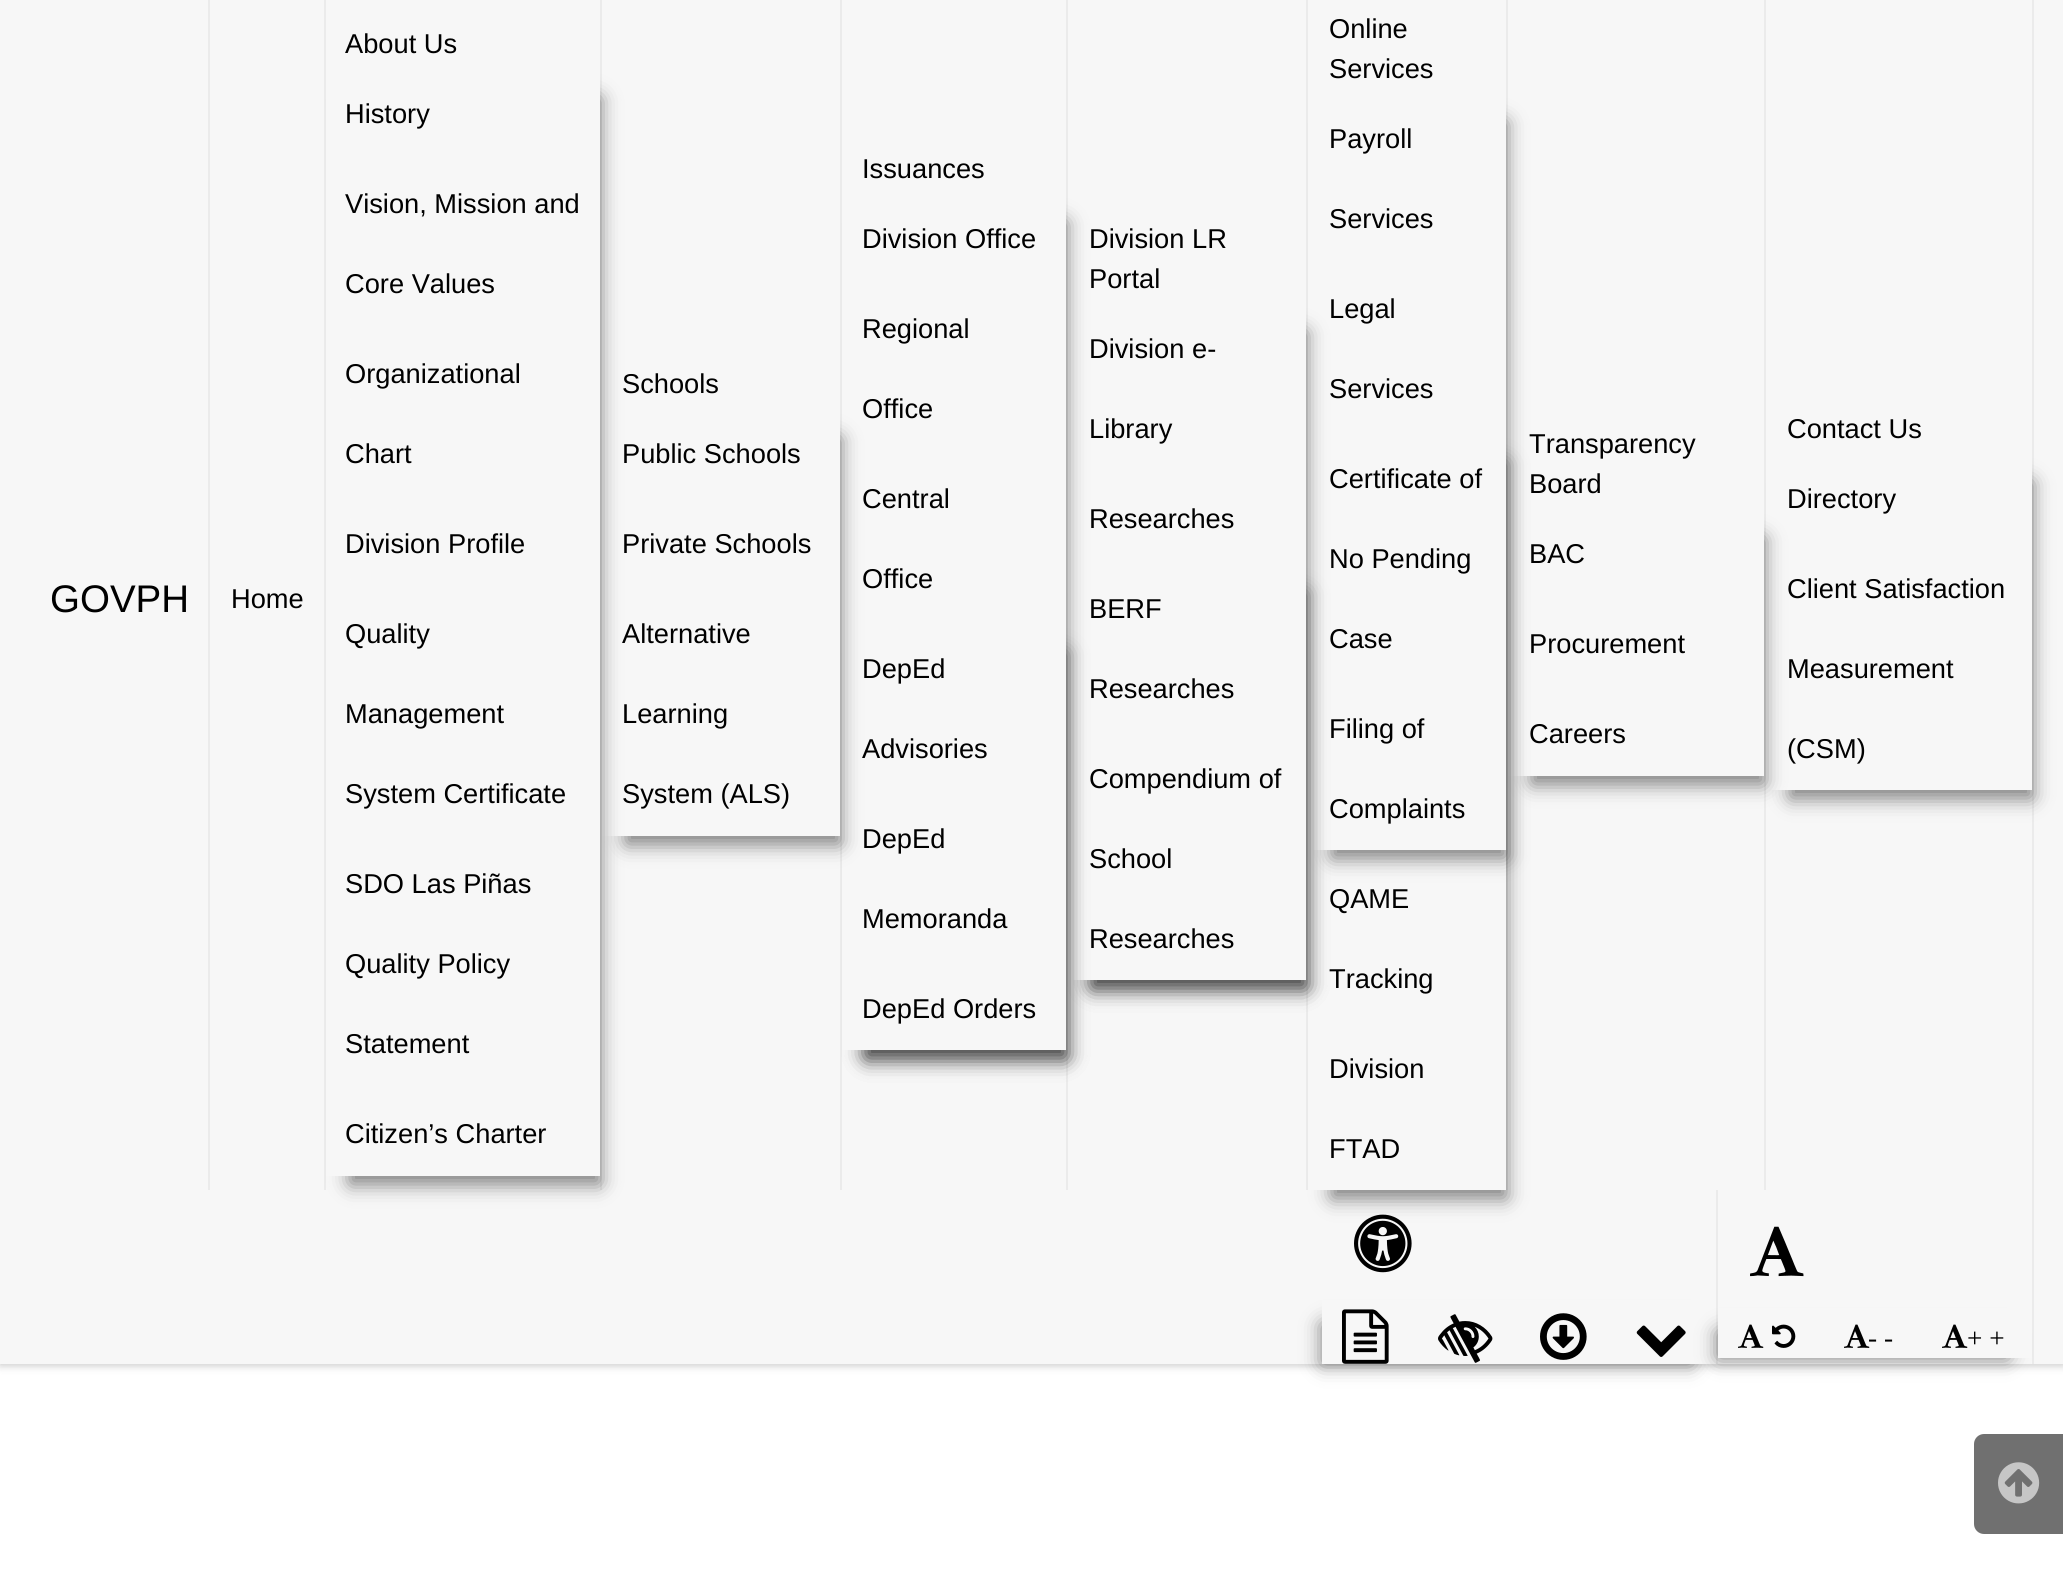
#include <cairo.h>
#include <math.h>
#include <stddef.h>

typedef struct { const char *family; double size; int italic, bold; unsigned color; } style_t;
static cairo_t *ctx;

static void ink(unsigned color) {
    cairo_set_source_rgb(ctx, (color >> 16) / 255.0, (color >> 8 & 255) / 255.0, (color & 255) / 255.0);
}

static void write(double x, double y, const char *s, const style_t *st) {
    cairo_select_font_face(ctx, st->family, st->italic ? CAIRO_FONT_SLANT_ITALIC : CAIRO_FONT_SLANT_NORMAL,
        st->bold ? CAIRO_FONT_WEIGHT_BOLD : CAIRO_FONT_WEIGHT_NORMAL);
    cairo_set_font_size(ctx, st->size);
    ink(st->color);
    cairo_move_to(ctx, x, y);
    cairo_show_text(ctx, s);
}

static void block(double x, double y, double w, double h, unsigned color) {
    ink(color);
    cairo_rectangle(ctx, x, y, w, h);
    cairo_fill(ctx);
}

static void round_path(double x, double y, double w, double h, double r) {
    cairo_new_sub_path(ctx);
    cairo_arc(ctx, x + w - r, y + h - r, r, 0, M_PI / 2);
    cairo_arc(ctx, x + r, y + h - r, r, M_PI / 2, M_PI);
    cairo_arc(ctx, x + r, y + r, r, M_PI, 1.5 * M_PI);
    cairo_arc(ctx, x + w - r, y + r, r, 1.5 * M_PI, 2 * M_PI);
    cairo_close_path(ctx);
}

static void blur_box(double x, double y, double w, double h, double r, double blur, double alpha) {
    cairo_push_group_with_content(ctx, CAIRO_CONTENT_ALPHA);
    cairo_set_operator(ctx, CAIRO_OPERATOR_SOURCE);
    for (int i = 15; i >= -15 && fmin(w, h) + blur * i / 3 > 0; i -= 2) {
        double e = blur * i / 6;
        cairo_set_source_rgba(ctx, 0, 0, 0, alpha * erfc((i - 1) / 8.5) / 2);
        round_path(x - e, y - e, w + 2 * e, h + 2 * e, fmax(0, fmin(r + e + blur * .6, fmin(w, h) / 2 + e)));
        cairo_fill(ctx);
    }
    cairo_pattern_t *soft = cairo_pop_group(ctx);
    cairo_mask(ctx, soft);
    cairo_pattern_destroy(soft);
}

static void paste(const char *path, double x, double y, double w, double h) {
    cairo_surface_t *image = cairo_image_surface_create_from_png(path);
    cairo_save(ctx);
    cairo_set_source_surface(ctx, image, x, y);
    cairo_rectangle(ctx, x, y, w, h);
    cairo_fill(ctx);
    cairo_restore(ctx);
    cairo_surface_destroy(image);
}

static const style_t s1 = {"Liberation Sans", 38.5, 0, 0, 0x000000};
static const style_t s2 = {"Liberation Sans", 27.25, 0, 0, 0x000000};
static const style_t s3 = {"Liberation Serif", 27.25, 0, 0, 0x000000};

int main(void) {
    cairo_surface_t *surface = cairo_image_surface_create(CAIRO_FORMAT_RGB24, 2063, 1582);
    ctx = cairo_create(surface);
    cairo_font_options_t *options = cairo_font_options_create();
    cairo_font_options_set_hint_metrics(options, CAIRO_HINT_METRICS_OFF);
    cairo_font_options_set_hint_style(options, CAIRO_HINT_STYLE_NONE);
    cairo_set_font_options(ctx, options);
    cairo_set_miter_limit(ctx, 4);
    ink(0xffffff);
    cairo_paint(ctx);
    ink(0x000000);
    blur_box(0, 2, 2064, 1364, 0, 4, 0.2);
    block(0, 0, 2063, 1364, 0xf7f7f7);
    block(208, 0, 2, 1190, 0xebebeb);
    write(50, 612, "GOVPH", &s1);
    block(324, 0, 2, 1190, 0xebebeb);
    write(231, 608, "Home", &s2);
    block(600, 0, 2, 1190, 0xebebeb);
    write(345, 53, "About Us", &s2);
    cairo_save(ctx);
    cairo_set_fill_rule(ctx, CAIRO_FILL_RULE_EVEN_ODD);
    cairo_new_path(ctx);
    cairo_move_to(ctx, 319, 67);
    cairo_line_to(ctx, 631, 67);
    cairo_line_to(ctx, 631, 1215);
    cairo_line_to(ctx, 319, 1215);
    cairo_close_path(ctx);
    cairo_move_to(ctx, 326, 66);
    cairo_line_to(ctx, 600, 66);
    cairo_line_to(ctx, 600, 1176);
    cairo_line_to(ctx, 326, 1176);
    cairo_close_path(ctx);
    cairo_clip(ctx);
    ink(0x000000);
    blur_box(350, 98, 250, 1086, 0, 10, 0.5);
    cairo_restore(ctx);
    write(345, 123, "History", &s2);
    write(345, 213, "Vision, Mission and", &s2);
    write(345, 293, "Core Values", &s2);
    write(345, 383, "Organizational", &s2);
    write(345, 463, "Chart", &s2);
    write(345, 553, "Division Profile", &s2);
    write(345, 643, "Quality", &s2);
    write(345, 723, "Management", &s2);
    write(345, 803, "System Certificate", &s2);
    write(345, 893, "SDO Las Piñas", &s2);
    write(345, 973, "Quality Policy", &s2);
    write(345, 1053, "Statement", &s2);
    write(345, 1143, "Citizen’s Charter", &s2);
    block(840, 0, 2, 1190, 0xebebeb);
    write(622, 393, "Schools", &s2);
    cairo_save(ctx);
    cairo_set_fill_rule(ctx, CAIRO_FILL_RULE_EVEN_ODD);
    cairo_new_path(ctx);
    cairo_move_to(ctx, 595, 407);
    cairo_line_to(ctx, 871, 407);
    cairo_line_to(ctx, 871, 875);
    cairo_line_to(ctx, 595, 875);
    cairo_close_path(ctx);
    cairo_move_to(ctx, 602, 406);
    cairo_line_to(ctx, 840, 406);
    cairo_line_to(ctx, 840, 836);
    cairo_line_to(ctx, 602, 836);
    cairo_close_path(ctx);
    cairo_clip(ctx);
    ink(0x000000);
    blur_box(626, 438, 214, 406, 0, 10, 0.5);
    cairo_restore(ctx);
    write(622, 463, "Public Schools", &s2);
    write(622, 553, "Private Schools", &s2);
    write(622, 643, "Alternative", &s2);
    write(622, 723, "Learning", &s2);
    write(622, 803, "System (ALS)", &s2);
    block(1066, 0, 2, 1190, 0xebebeb);
    write(862, 178, "Issuances", &s2);
    cairo_save(ctx);
    cairo_set_fill_rule(ctx, CAIRO_FILL_RULE_EVEN_ODD);
    cairo_new_path(ctx);
    cairo_move_to(ctx, 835, 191);
    cairo_line_to(ctx, 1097, 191);
    cairo_line_to(ctx, 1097, 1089);
    cairo_line_to(ctx, 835, 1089);
    cairo_close_path(ctx);
    cairo_move_to(ctx, 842, 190);
    cairo_line_to(ctx, 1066, 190);
    cairo_line_to(ctx, 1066, 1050);
    cairo_line_to(ctx, 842, 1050);
    cairo_close_path(ctx);
    cairo_clip(ctx);
    ink(0x000000);
    blur_box(866, 222, 200, 836, 0, 10, 0.5);
    cairo_restore(ctx);
    write(862, 248, "Division Office", &s2);
    write(862, 338, "Regional", &s2);
    write(862, 418, "Office", &s2);
    write(862, 508, "Central", &s2);
    write(862, 588, "Office", &s2);
    cairo_save(ctx);
    cairo_set_fill_rule(ctx, CAIRO_FILL_RULE_EVEN_ODD);
    cairo_new_path(ctx);
    cairo_move_to(ctx, 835, 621);
    cairo_line_to(ctx, 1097, 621);
    cairo_line_to(ctx, 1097, 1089);
    cairo_line_to(ctx, 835, 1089);
    cairo_close_path(ctx);
    cairo_move_to(ctx, 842, 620);
    cairo_line_to(ctx, 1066, 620);
    cairo_line_to(ctx, 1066, 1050);
    cairo_line_to(ctx, 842, 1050);
    cairo_close_path(ctx);
    cairo_clip(ctx);
    ink(0x000000);
    blur_box(866, 652, 200, 406, 0, 10, 0.5);
    cairo_restore(ctx);
    write(862, 678, "DepEd", &s2);
    write(862, 758, "Advisories", &s2);
    write(862, 848, "DepEd", &s2);
    write(862, 928, "Memoranda", &s2);
    write(862, 1018, "DepEd Orders", &s2);
    block(1306, 0, 2, 1190, 0xebebeb);
    write(1089, 248, "Division LR", &s2);
    write(1089, 288, "Portal", &s2);
    cairo_save(ctx);
    cairo_set_fill_rule(ctx, CAIRO_FILL_RULE_EVEN_ODD);
    cairo_new_path(ctx);
    cairo_move_to(ctx, 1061, 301);
    cairo_line_to(ctx, 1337, 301);
    cairo_line_to(ctx, 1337, 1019);
    cairo_line_to(ctx, 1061, 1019);
    cairo_close_path(ctx);
    cairo_move_to(ctx, 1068, 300);
    cairo_line_to(ctx, 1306, 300);
    cairo_line_to(ctx, 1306, 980);
    cairo_line_to(ctx, 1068, 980);
    cairo_close_path(ctx);
    cairo_clip(ctx);
    ink(0x000000);
    blur_box(1092, 332, 214, 656, 0, 10, 0.5);
    cairo_restore(ctx);
    write(1089, 358, "Division e-", &s2);
    write(1089, 438, "Library", &s2);
    write(1089, 528, "Researches", &s2);
    cairo_save(ctx);
    cairo_set_fill_rule(ctx, CAIRO_FILL_RULE_EVEN_ODD);
    cairo_new_path(ctx);
    cairo_move_to(ctx, 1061, 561);
    cairo_line_to(ctx, 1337, 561);
    cairo_line_to(ctx, 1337, 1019);
    cairo_line_to(ctx, 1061, 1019);
    cairo_close_path(ctx);
    cairo_move_to(ctx, 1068, 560);
    cairo_line_to(ctx, 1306, 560);
    cairo_line_to(ctx, 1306, 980);
    cairo_line_to(ctx, 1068, 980);
    cairo_close_path(ctx);
    cairo_clip(ctx);
    ink(0x000000);
    blur_box(1092, 592, 214, 396, 0, 10, 0.5);
    cairo_restore(ctx);
    write(1089, 618, "BERF", &s2);
    write(1089, 698, "Researches", &s2);
    write(1089, 788, "Compendium of", &s2);
    write(1089, 868, "School", &s2);
    write(1089, 948, "Researches", &s2);
    block(1506, 0, 2, 1190, 0xebebeb);
    write(1329, 38, "Online", &s2);
    write(1329, 78, "Services", &s2);
    cairo_save(ctx);
    cairo_set_fill_rule(ctx, CAIRO_FILL_RULE_EVEN_ODD);
    cairo_new_path(ctx);
    cairo_move_to(ctx, 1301, 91);
    cairo_line_to(ctx, 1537, 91);
    cairo_line_to(ctx, 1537, 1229);
    cairo_line_to(ctx, 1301, 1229);
    cairo_close_path(ctx);
    cairo_move_to(ctx, 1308, 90);
    cairo_line_to(ctx, 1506, 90);
    cairo_line_to(ctx, 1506, 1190);
    cairo_line_to(ctx, 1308, 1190);
    cairo_close_path(ctx);
    cairo_clip(ctx);
    ink(0x000000);
    blur_box(1332, 122, 174, 1076, 0, 10, 0.5);
    cairo_restore(ctx);
    write(1329, 148, "Payroll", &s2);
    write(1329, 228, "Services", &s2);
    write(1329, 318, "Legal", &s2);
    write(1329, 398, "Services", &s2);
    cairo_save(ctx);
    cairo_set_fill_rule(ctx, CAIRO_FILL_RULE_EVEN_ODD);
    cairo_new_path(ctx);
    cairo_move_to(ctx, 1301, 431);
    cairo_line_to(ctx, 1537, 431);
    cairo_line_to(ctx, 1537, 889);
    cairo_line_to(ctx, 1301, 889);
    cairo_close_path(ctx);
    cairo_move_to(ctx, 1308, 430);
    cairo_line_to(ctx, 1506, 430);
    cairo_line_to(ctx, 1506, 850);
    cairo_line_to(ctx, 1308, 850);
    cairo_close_path(ctx);
    cairo_clip(ctx);
    ink(0x000000);
    blur_box(1332, 462, 174, 396, 0, 10, 0.5);
    cairo_restore(ctx);
    write(1329, 488, "Certificate of", &s2);
    write(1329, 568, "No Pending", &s2);
    write(1329, 648, "Case", &s2);
    write(1329, 738, "Filing of", &s2);
    write(1329, 818, "Complaints", &s2);
    write(1329, 908, "QAME", &s2);
    write(1329, 988, "Tracking", &s2);
    write(1329, 1078, "Division", &s2);
    write(1329, 1158, "FTAD", &s2);
    block(1764, 0, 2, 1190, 0xebebeb);
    write(1529, 453, "Transparency", &s2);
    write(1529, 493, "Board", &s2);
    cairo_save(ctx);
    cairo_set_fill_rule(ctx, CAIRO_FILL_RULE_EVEN_ODD);
    cairo_new_path(ctx);
    cairo_move_to(ctx, 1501, 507);
    cairo_line_to(ctx, 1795, 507);
    cairo_line_to(ctx, 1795, 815);
    cairo_line_to(ctx, 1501, 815);
    cairo_close_path(ctx);
    cairo_move_to(ctx, 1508, 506);
    cairo_line_to(ctx, 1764, 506);
    cairo_line_to(ctx, 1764, 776);
    cairo_line_to(ctx, 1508, 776);
    cairo_close_path(ctx);
    cairo_clip(ctx);
    ink(0x000000);
    blur_box(1532, 538, 232, 246, 0, 10, 0.5);
    cairo_restore(ctx);
    write(1529, 563, "BAC", &s2);
    write(1529, 653, "Procurement", &s2);
    write(1529, 743, "Careers", &s2);
    block(2032, 0, 2, 1364, 0xebebeb);
    write(1787, 438, "Contact Us", &s2);
    cairo_save(ctx);
    cairo_set_fill_rule(ctx, CAIRO_FILL_RULE_EVEN_ODD);
    cairo_new_path(ctx);
    cairo_move_to(ctx, 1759, 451);
    cairo_line_to(ctx, 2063, 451);
    cairo_line_to(ctx, 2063, 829);
    cairo_line_to(ctx, 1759, 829);
    cairo_close_path(ctx);
    cairo_move_to(ctx, 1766, 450);
    cairo_line_to(ctx, 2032, 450);
    cairo_line_to(ctx, 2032, 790);
    cairo_line_to(ctx, 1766, 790);
    cairo_close_path(ctx);
    cairo_clip(ctx);
    ink(0x000000);
    blur_box(1790, 482, 242, 316, 0, 10, 0.5);
    cairo_restore(ctx);
    write(1787, 508, "Directory", &s2);
    write(1787, 598, "Client Satisfaction", &s2);
    write(1787, 678, "Measurement", &s2);
    write(1787, 758, "(CSM)", &s2);
    block(1716, 1190, 2, 174, 0xebebeb);
    paste("pic1.png", 1354, 1214, 58, 59);
    cairo_save(ctx);
    cairo_set_fill_rule(ctx, CAIRO_FILL_RULE_EVEN_ODD);
    cairo_new_path(ctx);
    cairo_move_to(ctx, 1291, 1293);
    cairo_line_to(ctx, 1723, 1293);
    cairo_line_to(ctx, 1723, 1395);
    cairo_line_to(ctx, 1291, 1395);
    cairo_close_path(ctx);
    cairo_move_to(ctx, 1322, 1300);
    cairo_line_to(ctx, 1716, 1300);
    cairo_line_to(ctx, 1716, 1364);
    cairo_line_to(ctx, 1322, 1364);
    cairo_close_path(ctx);
    cairo_clip(ctx);
    ink(0x000000);
    blur_box(1322, 1324, 370, 40, 0, 10, 0.5);
    cairo_restore(ctx);
    paste("pic2.png", 1342, 1309, 47, 55);
    paste("pic3.png", 1438, 1314, 55, 49);
    paste("pic4.png", 1540, 1313, 47, 47);
    paste("pic5.png", 1636, 1325, 50, 32);
    paste("pic6.png", 1750, 1226, 54, 51);
    cairo_save(ctx);
    cairo_set_fill_rule(ctx, CAIRO_FILL_RULE_EVEN_ODD);
    cairo_new_path(ctx);
    cairo_move_to(ctx, 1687, 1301);
    cairo_line_to(ctx, 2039, 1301);
    cairo_line_to(ctx, 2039, 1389);
    cairo_line_to(ctx, 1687, 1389);
    cairo_close_path(ctx);
    cairo_move_to(ctx, 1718, 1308);
    cairo_line_to(ctx, 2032, 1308);
    cairo_line_to(ctx, 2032, 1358);
    cairo_line_to(ctx, 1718, 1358);
    cairo_close_path(ctx);
    cairo_clip(ctx);
    ink(0x000000);
    blur_box(1718, 1332, 290, 26, 0, 10, 0.5);
    cairo_restore(ctx);
    paste("pic7.png", 1738, 1324, 26, 24);
    paste("pic8.png", 1772, 1324, 24, 24);
    paste("pic7.png", 1844, 1324, 26, 24);
    write(1868, 1347, "- -", &s3);
    paste("pic7.png", 1942, 1324, 26, 24);
    write(1967, 1347, "+ +", &s3);
    ink(0x707070);
    cairo_new_path(ctx);
    cairo_move_to(ctx, 1984, 1434);
    cairo_line_to(ctx, 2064, 1434);
    cairo_line_to(ctx, 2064, 1534);
    cairo_line_to(ctx, 1984, 1534);
    cairo_curve_to(ctx, 1978.5, 1534, 1974, 1529.5, 1974, 1524);
    cairo_line_to(ctx, 1974, 1444);
    cairo_curve_to(ctx, 1974, 1438.5, 1978.5, 1434, 1984, 1434);
    cairo_close_path(ctx);
    cairo_fill(ctx);
    paste("pic9.png", 1998, 1462, 42, 42);
    cairo_surface_write_to_png(surface, "screenshot.png");
    cairo_font_options_destroy(options);
    cairo_destroy(ctx);
    cairo_surface_destroy(surface);
    return 0;
}
